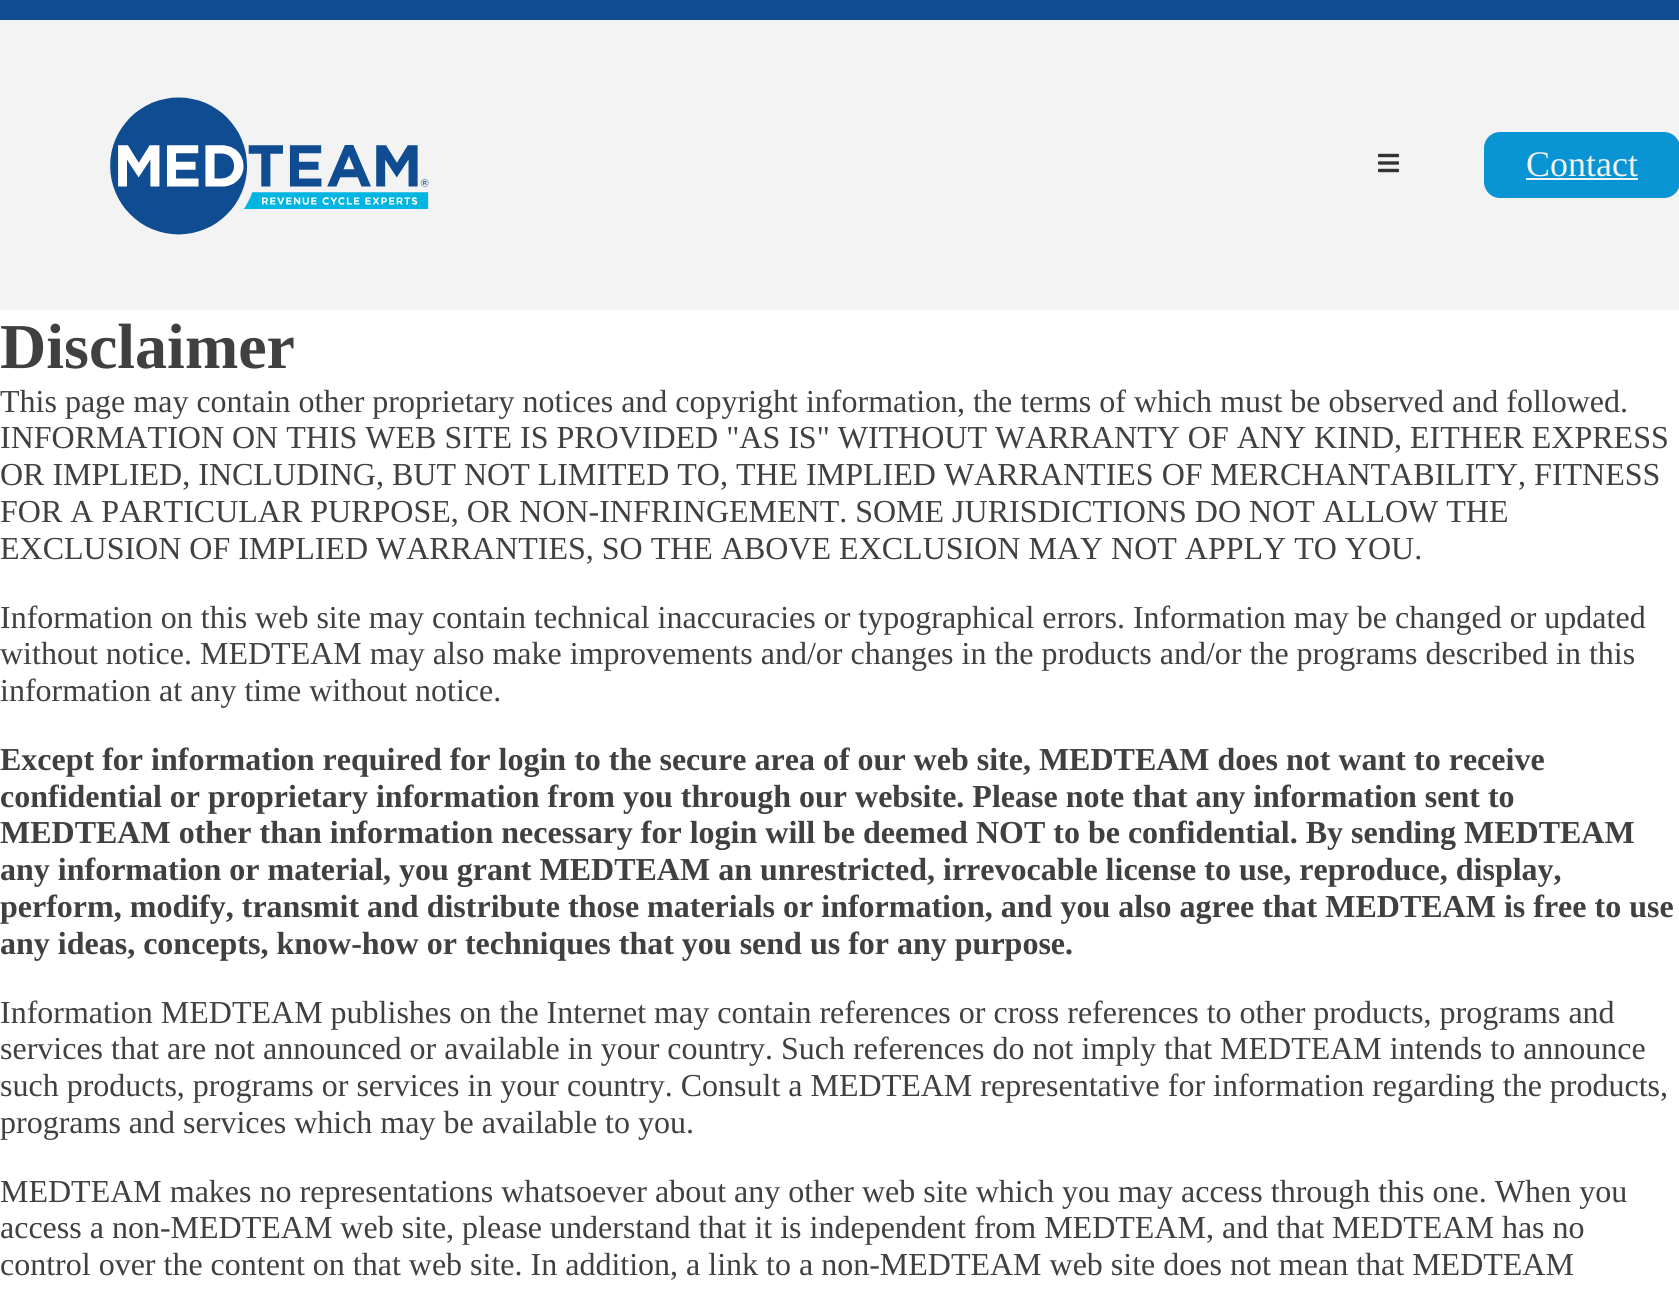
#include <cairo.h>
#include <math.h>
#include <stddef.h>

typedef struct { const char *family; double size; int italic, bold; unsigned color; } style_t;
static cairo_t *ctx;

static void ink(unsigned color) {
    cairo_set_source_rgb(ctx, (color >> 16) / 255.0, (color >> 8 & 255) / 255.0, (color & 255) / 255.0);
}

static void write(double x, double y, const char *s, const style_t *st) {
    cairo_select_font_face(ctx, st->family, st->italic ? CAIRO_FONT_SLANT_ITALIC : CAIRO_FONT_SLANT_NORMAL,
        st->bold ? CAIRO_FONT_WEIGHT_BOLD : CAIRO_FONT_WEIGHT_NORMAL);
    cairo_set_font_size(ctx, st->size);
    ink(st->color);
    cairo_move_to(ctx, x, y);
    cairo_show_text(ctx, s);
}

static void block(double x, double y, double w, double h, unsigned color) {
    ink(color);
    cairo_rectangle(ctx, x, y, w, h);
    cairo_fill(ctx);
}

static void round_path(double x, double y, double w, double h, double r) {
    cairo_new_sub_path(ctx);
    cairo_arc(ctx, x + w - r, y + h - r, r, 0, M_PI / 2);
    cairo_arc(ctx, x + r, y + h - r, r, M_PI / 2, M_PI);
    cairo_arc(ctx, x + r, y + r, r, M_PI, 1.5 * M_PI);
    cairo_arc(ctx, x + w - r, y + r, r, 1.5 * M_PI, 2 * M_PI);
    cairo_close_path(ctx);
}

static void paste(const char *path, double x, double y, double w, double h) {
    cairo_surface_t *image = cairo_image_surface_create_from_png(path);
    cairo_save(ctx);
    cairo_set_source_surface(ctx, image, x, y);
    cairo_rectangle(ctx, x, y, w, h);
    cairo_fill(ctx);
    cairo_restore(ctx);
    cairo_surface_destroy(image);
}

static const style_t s1 = {"Liberation Serif", 36, 0, 0, 0xf2f3f2};
static const style_t s2 = {"Liberation Serif", 64, 0, 1, 0x404040};
static const style_t s3 = {"Liberation Serif", 32, 0, 0, 0x404040};
static const style_t s4 = {"Liberation Serif", 32, 0, 1, 0x404040};

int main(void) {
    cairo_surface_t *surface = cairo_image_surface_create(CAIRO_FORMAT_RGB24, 1679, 1289);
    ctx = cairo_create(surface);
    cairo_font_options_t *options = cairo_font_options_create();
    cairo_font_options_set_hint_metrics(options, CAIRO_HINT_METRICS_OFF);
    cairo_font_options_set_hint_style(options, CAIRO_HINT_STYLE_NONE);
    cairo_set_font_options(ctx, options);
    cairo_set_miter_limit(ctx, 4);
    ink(0xffffff);
    cairo_paint(ctx);
    block(0, 0, 1679, 20, 0x0f4c92);
    block(0, 20, 1679, 290, 0xf2f3f2);
    paste("pic1.png", 110, 97, 319, 138);
    paste("pic2.png", 1378, 153, 21, 20);
    ink(0x0994d3);
    round_path(1485, 133, 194, 64, 15);
    cairo_fill_preserve(ctx);
    cairo_stroke(ctx);
    write(1526, 176, "Contact", &s1);
    block(1526, 178, 112, 2, 0xf2f3f2);
    write(0, 368, "Disclaimer", &s2);
    write(0, 412, "This page may contain other proprietary notices and copyright information, the terms of which must be observed and followed.", &s3);
    write(0, 448, "INFORMATION ON THIS WEB SITE IS PROVIDED \"AS IS\" WITHOUT WARRANTY OF ANY KIND, EITHER EXPRESS", &s3);
    write(0, 485, "OR IMPLIED, INCLUDING, BUT NOT LIMITED TO, THE IMPLIED WARRANTIES OF MERCHANTABILITY, FITNESS", &s3);
    write(0, 522, "FOR A PARTICULAR PURPOSE, OR NON-INFRINGEMENT. SOME JURISDICTIONS DO NOT ALLOW THE", &s3);
    write(0, 559, "EXCLUSION OF IMPLIED WARRANTIES, SO THE ABOVE EXCLUSION MAY NOT APPLY TO YOU.", &s3);
    write(0, 628, "Information on this web site may contain technical inaccuracies or typographical errors. Information may be changed or updated", &s3);
    write(0, 664, "without notice. MEDTEAM may also make improvements and/or changes in the products and/or the programs described in this", &s3);
    write(0, 701, "information at any time without notice.", &s3);
    write(0, 770, "Except for information required for login to the secure area of our web site, MEDTEAM does not want to receive", &s4);
    write(0, 807, "confidential or proprietary information from you through our website. Please note that any information sent to", &s4);
    write(0, 843, "MEDTEAM other than information necessary for login will be deemed NOT to be confidential. By sending MEDTEAM", &s4);
    write(0, 880, "any information or material, you grant MEDTEAM an unrestricted, irrevocable license to use, reproduce, display,", &s4);
    write(0, 917, "perform, modify, transmit and distribute those materials or information, and you also agree that MEDTEAM is free to use", &s4);
    write(0, 954, "any ideas, concepts, know-how or techniques that you send us for any purpose.", &s4);
    write(0, 1023, "Information MEDTEAM publishes on the Internet may contain references or cross references to other products, programs and", &s3);
    write(0, 1059, "services that are not announced or available in your country. Such references do not imply that MEDTEAM intends to announce", &s3);
    write(0, 1096, "such products, programs or services in your country. Consult a MEDTEAM representative for information regarding the products,", &s3);
    write(0, 1133, "programs and services which may be available to you.", &s3);
    write(0, 1202, "MEDTEAM makes no representations whatsoever about any other web site which you may access through this one. When you", &s3);
    write(0, 1238, "access a non-MEDTEAM web site, please understand that it is independent from MEDTEAM, and that MEDTEAM has no", &s3);
    write(0, 1275, "control over the content on that web site. In addition, a link to a non-MEDTEAM web site does not mean that MEDTEAM", &s3);
    cairo_surface_write_to_png(surface, "screenshot.png");
    cairo_font_options_destroy(options);
    cairo_destroy(ctx);
    cairo_surface_destroy(surface);
    return 0;
}
